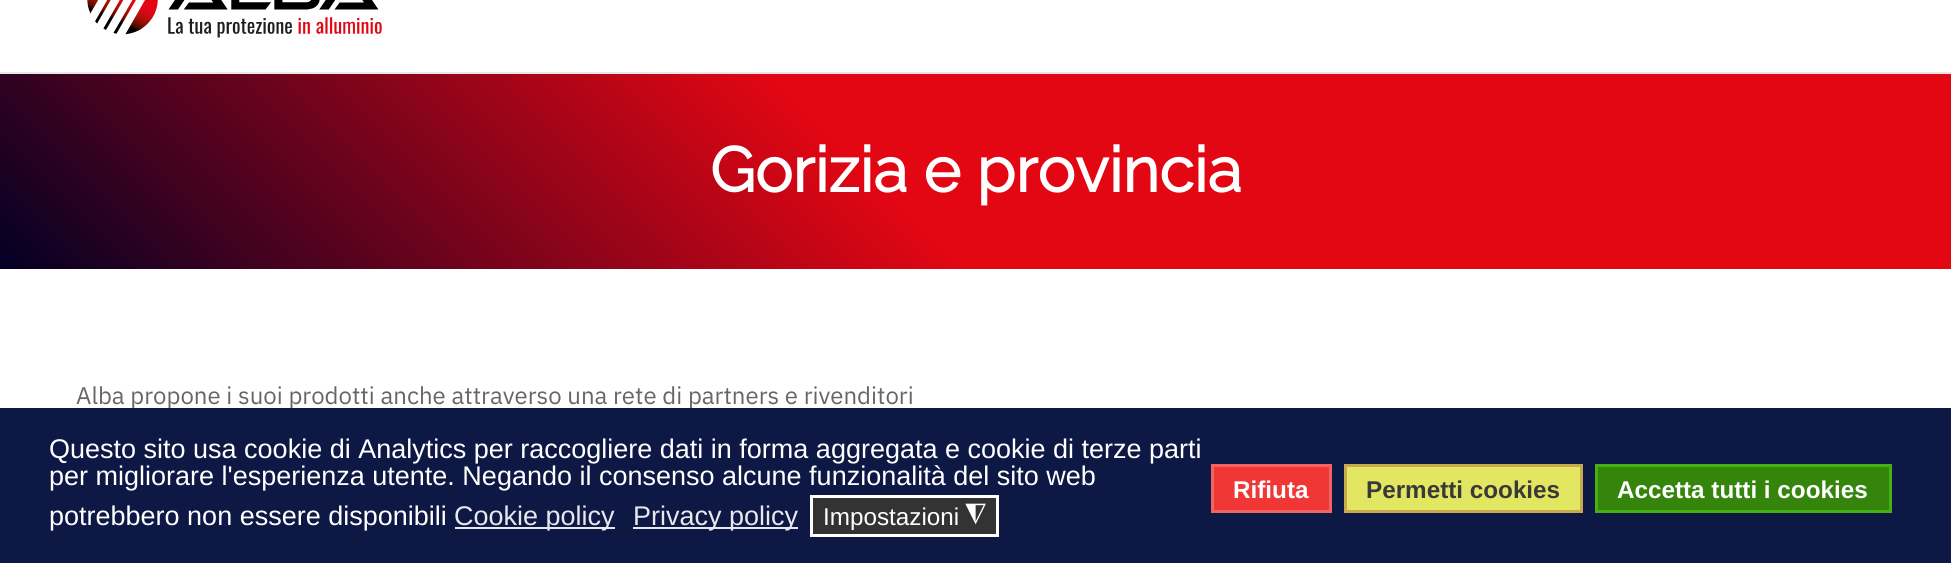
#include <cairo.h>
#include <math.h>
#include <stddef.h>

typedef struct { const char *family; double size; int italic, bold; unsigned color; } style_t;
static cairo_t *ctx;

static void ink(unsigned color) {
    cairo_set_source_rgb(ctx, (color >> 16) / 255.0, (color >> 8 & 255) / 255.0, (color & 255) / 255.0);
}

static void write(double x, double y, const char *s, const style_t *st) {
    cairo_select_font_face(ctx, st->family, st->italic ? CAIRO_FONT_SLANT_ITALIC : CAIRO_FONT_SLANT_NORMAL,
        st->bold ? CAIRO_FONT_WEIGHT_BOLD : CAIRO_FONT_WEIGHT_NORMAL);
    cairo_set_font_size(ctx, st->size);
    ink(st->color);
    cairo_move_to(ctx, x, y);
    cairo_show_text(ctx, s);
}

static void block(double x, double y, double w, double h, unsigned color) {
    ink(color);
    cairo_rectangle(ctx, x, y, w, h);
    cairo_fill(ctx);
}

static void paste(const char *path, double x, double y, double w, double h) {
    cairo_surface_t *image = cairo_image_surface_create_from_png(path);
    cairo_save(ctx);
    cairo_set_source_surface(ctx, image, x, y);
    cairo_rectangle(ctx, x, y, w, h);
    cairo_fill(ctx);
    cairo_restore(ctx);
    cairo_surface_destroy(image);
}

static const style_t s1 = {"Raleway", 63, 0, 1, 0xffffff};
static const style_t s2 = {"IBM Plex Sans", 24, 0, 0, 0x666666};
static const style_t s3 = {"Liberation Sans", 27, 0, 0, 0xffffff};
static const style_t s4 = {"Liberation Sans", 27, 0, 0, 0xe7e8ec};
static const style_t s5 = {"Liberation Sans", 24.25, 0, 0, 0xffffff};
static const style_t s6 = {"DejaVu Sans", 27, 0, 0, 0xffffff};
static const style_t s7 = {"Liberation Sans", 24.25, 0, 1, 0xffffff};
static const style_t s8 = {"Liberation Sans", 24.25, 0, 1, 0x393939};

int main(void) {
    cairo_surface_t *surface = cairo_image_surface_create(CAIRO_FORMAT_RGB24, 1951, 563);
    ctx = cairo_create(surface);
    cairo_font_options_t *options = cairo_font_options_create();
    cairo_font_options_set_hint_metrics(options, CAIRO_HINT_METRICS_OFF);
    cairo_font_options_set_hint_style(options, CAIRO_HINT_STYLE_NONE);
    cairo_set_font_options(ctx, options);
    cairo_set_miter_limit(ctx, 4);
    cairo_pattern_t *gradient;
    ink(0xffffff);
    cairo_paint(ctx);
    block(0, 72, 1951, 2, 0xe8e8e8);
    paste("pic1.png", 87, 0, 295, 38);
    gradient = cairo_pattern_create_linear(439, 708, 1512, -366);
    cairo_pattern_add_color_stop_rgba(gradient, 0, 0.008, 0, 0.141, 1);
    cairo_pattern_add_color_stop_rgba(gradient, 0.45, 0.89, 0.024, 0.075, 1);
    cairo_set_source(ctx, gradient);
    cairo_pattern_destroy(gradient);
    cairo_rectangle(ctx, 0, 74, 1951, 195);
    cairo_fill(ctx);
    write(710, 192, "Gorizia e provincia", &s1);
    write(76, 404, "Alba propone i suoi prodotti anche attraverso una rete di partners e rivenditori", &s2);
    block(0, 408, 1951, 155, 0x0e1844);
    write(49, 458, "Questo sito usa cookie di Analytics per raccogliere dati in forma aggregata e cookie di terze parti", &s3);
    write(49, 485, "per migliorare l'esperienza utente. Negando il consenso alcune funzionalità del sito web", &s3);
    write(49, 525, "potrebbero non essere disponibili", &s3);
    block(455, 527, 160, 2, 0xe7e8ec);
    write(454, 525, "Cookie policy", &s4);
    block(633, 527, 165, 2, 0xe7e8ec);
    write(633, 525, "Privacy policy", &s4);
    ink(0x333333);
    cairo_rectangle(ctx, 811.5, 496.5, 186, 39);
    cairo_fill_preserve(ctx);
    ink(0xffffff);
    cairo_set_line_width(ctx, 3);
    cairo_stroke(ctx);
    write(823, 525, "Impostazioni", &s5);
    cairo_save(ctx);
    cairo_translate(ctx, 986, 507);
    cairo_rotate(ctx, 180 * M_PI / 180);
    write(0, 0, "◮", &s6);
    cairo_restore(ctx);
    ink(0xf03735);
    cairo_rectangle(ctx, 1212.5, 465.5, 118, 46);
    cairo_fill_preserve(ctx);
    ink(0xf06463);
    cairo_stroke(ctx);
    write(1233, 498, "Rifiuta", &s7);
    ink(0xe2e661);
    cairo_rectangle(ctx, 1345.5, 465.5, 236, 46);
    cairo_fill_preserve(ctx);
    ink(0xc7a950);
    cairo_stroke(ctx);
    write(1366, 498, "Permetti cookies", &s8);
    ink(0x35840c);
    cairo_rectangle(ctx, 1596.5, 465.5, 294, 46);
    cairo_fill_preserve(ctx);
    ink(0x44b10e);
    cairo_stroke(ctx);
    write(1617, 498, "Accetta tutti i cookies", &s7);
    cairo_surface_write_to_png(surface, "screenshot.png");
    cairo_font_options_destroy(options);
    cairo_destroy(ctx);
    cairo_surface_destroy(surface);
    return 0;
}
